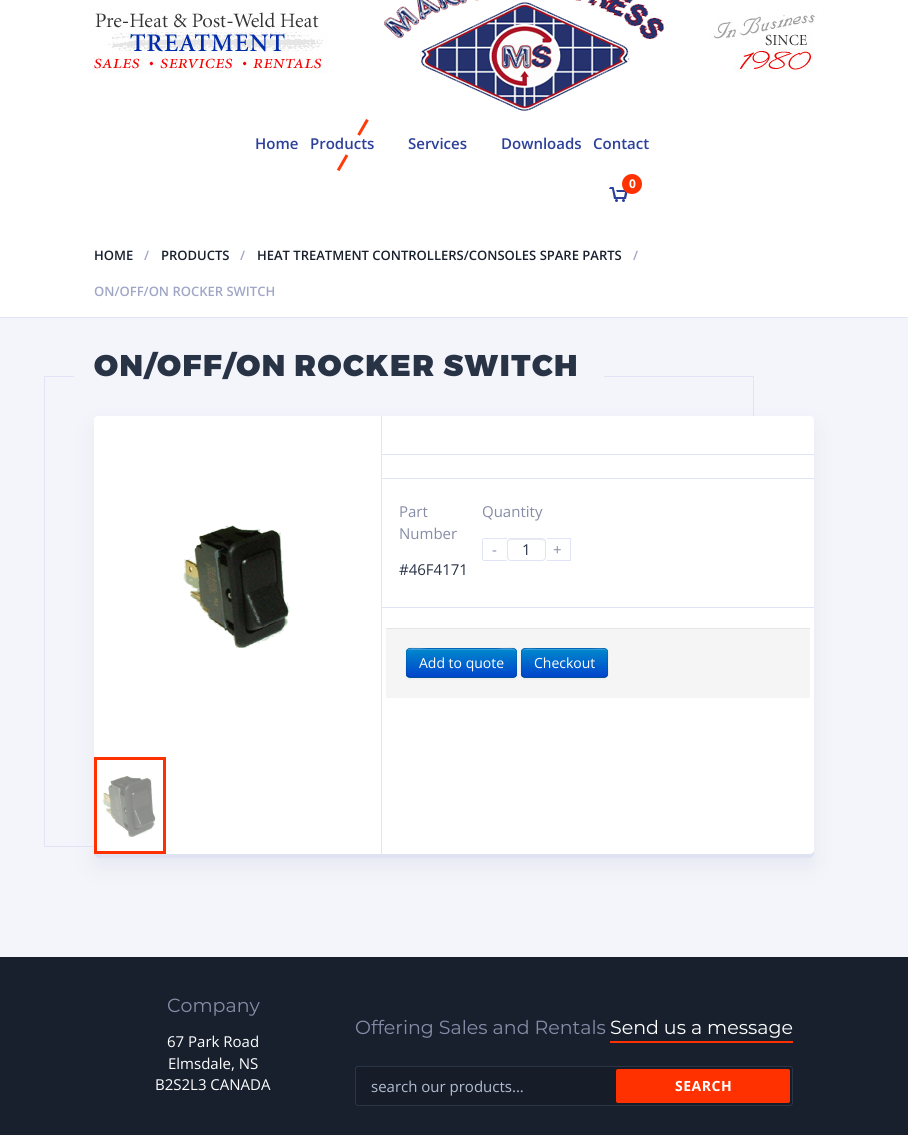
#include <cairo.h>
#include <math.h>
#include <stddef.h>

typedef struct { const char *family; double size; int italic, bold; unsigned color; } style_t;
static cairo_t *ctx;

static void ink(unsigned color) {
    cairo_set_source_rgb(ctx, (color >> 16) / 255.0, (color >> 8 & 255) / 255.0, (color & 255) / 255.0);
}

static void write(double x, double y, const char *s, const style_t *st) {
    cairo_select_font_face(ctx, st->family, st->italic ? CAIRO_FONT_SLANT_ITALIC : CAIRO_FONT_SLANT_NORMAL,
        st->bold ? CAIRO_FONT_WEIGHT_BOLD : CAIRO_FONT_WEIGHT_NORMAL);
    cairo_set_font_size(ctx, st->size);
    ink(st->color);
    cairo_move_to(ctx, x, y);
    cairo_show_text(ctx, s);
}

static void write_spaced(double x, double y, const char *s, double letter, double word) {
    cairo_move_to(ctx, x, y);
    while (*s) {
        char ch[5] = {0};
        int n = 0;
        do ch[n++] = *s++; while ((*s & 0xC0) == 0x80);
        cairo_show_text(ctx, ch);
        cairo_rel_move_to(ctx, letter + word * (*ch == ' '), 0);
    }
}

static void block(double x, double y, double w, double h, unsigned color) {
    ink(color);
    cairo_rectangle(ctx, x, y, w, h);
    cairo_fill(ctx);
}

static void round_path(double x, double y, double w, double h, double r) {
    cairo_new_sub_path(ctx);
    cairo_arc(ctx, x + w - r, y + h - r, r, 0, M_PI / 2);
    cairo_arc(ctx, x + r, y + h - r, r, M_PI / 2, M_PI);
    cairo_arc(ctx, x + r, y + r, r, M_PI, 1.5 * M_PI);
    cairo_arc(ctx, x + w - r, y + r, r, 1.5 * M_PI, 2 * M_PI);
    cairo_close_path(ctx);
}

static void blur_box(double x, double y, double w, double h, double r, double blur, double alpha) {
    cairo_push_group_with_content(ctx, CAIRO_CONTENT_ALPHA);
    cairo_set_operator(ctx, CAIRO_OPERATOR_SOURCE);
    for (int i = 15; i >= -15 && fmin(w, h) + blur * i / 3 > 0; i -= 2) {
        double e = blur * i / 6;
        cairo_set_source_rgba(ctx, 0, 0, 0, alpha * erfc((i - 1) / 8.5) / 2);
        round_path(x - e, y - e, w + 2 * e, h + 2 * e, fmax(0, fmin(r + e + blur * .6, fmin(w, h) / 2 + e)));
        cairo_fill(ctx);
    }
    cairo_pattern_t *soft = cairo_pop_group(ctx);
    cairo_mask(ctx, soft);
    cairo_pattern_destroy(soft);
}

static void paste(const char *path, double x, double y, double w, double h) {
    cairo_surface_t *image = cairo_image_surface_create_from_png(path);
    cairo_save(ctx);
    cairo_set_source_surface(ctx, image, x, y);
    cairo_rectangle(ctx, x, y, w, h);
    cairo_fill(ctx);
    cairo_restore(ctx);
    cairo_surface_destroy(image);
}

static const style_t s1 = {"Open Sans SemiBold", 15, 0, 0, 0x2c409a};
static const style_t s2 = {"Open Sans", 12, 0, 1, 0xffffff};
static const style_t s3 = {"Open Sans SemiBold", 13, 0, 0, 0x18202e};
static const style_t s4 = {"Open Sans SemiBold", 13, 0, 0, 0xa0a6c5};
static const style_t s5 = {"Open Sans", 15, 0, 0, 0x868ca7};
static const style_t s6 = {"Open Sans", 15, 0, 0, 0x283346};
static const style_t s7 = {"Open Sans", 14, 0, 0, 0xffffff};
static const style_t s8 = {"Montserrat", 19, 0, 0, 0x868ca7};
static const style_t s9 = {"Open Sans", 15, 0, 0, 0xffffff};
static const style_t s10 = {"Montserrat", 19, 0, 0, 0xffffff};
static const style_t s11 = {"Open Sans", 15, 0, 0, 0xb1bcd0};

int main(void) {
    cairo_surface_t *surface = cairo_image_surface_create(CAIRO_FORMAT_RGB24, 908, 1135);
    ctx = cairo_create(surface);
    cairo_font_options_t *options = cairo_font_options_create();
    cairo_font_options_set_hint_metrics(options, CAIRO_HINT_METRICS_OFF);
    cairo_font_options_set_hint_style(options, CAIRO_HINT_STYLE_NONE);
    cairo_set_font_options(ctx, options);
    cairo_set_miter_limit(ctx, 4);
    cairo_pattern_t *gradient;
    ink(0xf4f5fb);
    cairo_paint(ctx);
    block(0, 0, 908, 317, 0xffffff);
    paste("pic1.png", 89, 0, 728, 111);
    write(255, 149, "Home", &s1);
    paste("pic2.png", 336, 119, 33, 53);
    write(310, 149, "Products", &s1);
    write(408, 149, "Services", &s1);
    write(501, 149, "Downloads", &s1);
    write(593, 149, "Contact", &s1);
    paste("pic3.png", 609, 187, 19, 15);
    ink(0xff3100);
    cairo_arc(ctx, 632, 184, 10, 0, 2 * M_PI);
    cairo_fill(ctx);
    write(629, 188, "0", &s2);
    block(0, 317, 908, 1, 0xe0e4f6);
    write(94, 260, "HOME", &s3);
    write(144, 260, "/", &s4);
    write(161, 260, "PRODUCTS", &s3);
    write(240, 260, "/", &s4);
    write(257, 260, "HEAT TREATMENT CONTROLLERS/CONSOLES SPARE PARTS", &s3);
    write(633, 260, "/", &s4);
    write(94, 296, "ON/OFF/ON ROCKER SWITCH", &s4);
    cairo_select_font_face(ctx, "Montserrat Black", CAIRO_FONT_SLANT_NORMAL, CAIRO_FONT_WEIGHT_NORMAL);
    cairo_set_font_size(ctx, 30);
    ink(0x283346);
    write_spaced(94, 376, "ON/OFF/ON ROCKER SWITCH", 1.5, 0);
    block(44, 376, 1, 471, 0xe0e4f6);
    block(44, 376, 30, 1, 0xe0e4f6);
    block(44, 846, 50, 1, 0xe0e4f6);
    block(604, 376, 150, 1, 0xe0e4f6);
    block(753, 376, 1, 40, 0xe0e4f6);
    ink(0xc0c4d7);
    blur_box(94, 426, 720, 442, 4, 10, 0.25);
    ink(0xffffff);
    round_path(94, 416, 720, 442, 4);
    cairo_fill(ctx);
    ink(0xdfe2f0);
    cairo_new_path(ctx);
    cairo_move_to(ctx, 94, 850);
    cairo_line_to(ctx, 94, 854);
    cairo_curve_to(ctx, 94, 856, 96, 858, 98, 858);
    cairo_line_to(ctx, 810, 858);
    cairo_curve_to(ctx, 812, 858, 814, 856, 814, 854);
    cairo_line_to(ctx, 814, 850);
    cairo_curve_to(ctx, 814, 852, 812, 854, 810, 854);
    cairo_line_to(ctx, 98, 854);
    cairo_curve_to(ctx, 96, 854, 94, 852, 94, 850);
    cairo_close_path(ctx);
    cairo_fill(ctx);
    block(381, 416, 1, 442, 0xe0e4f6);
    paste("pic4.png", 183, 525, 107, 123);
    paste("pic5.png", 102, 775, 54, 62);
    cairo_set_source_rgba(ctx, 1, 1, 1, 0.5);
    cairo_rectangle(ctx, 102, 775, 54, 62);
    cairo_fill(ctx);
    cairo_rectangle(ctx, 95.5, 758.5, 69, 94);
    ink(0xff3100);
    cairo_set_line_width(ctx, 3);
    cairo_stroke(ctx);
    block(382, 454, 432, 1, 0xe0e4f6);
    block(382, 478, 432, 1, 0xe0e4f6);
    block(382, 607, 432, 1, 0xe0e4f6);
    write(399, 517, "Part", &s5);
    write(399, 539, "Number", &s5);
    write(399, 575, "#46F4171", &s6);
    write(482, 517, "Quantity", &s5);
    block(483, 538, 24, 1, 0xe0e4f6);
    block(483, 560, 24, 1, 0xe0e4f6);
    block(482, 539, 1, 21, 0xe0e4f6);
    write(492, 555, "-", &s5);
    ink(0xececec);
    cairo_set_fill_rule(ctx, CAIRO_FILL_RULE_EVEN_ODD);
    cairo_new_path(ctx);
    cairo_move_to(ctx, 511, 540);
    cairo_line_to(ctx, 537, 540);
    cairo_curve_to(ctx, 542, 540, 544.5, 540.5, 545, 542);
    cairo_curve_to(ctx, 545, 538, 539, 539, 537, 539);
    cairo_line_to(ctx, 516, 539);
    cairo_curve_to(ctx, 512.5, 539, 508, 538, 508, 542.5);
    cairo_curve_to(ctx, 508.5, 541, 509.5, 540, 511, 540);
    cairo_close_path(ctx);
    cairo_move_to(ctx, 508.5, 558.5);
    cairo_line_to(ctx, 508, 553);
    cairo_curve_to(ctx, 508, 554.5, 507.5, 557, 508.5, 558.5);
    cairo_close_path(ctx);
    cairo_fill(ctx);
    round_path(507.5, 538.5, 38, 22, 3.5);
    ink(0xe0e4f6);
    cairo_set_line_width(ctx, 1);
    cairo_stroke(ctx);
    write(522, 555, "1", &s6);
    block(547, 538, 24, 1, 0xe0e4f6);
    block(570, 538, 1, 23, 0xe0e4f6);
    block(547, 560, 24, 1, 0xe0e4f6);
    write(553, 555, "+", &s5);
    block(386, 629, 424, 69, 0xf5f5f5);
    block(386, 628, 424, 1, 0xe5e5e5);
    ink(0x000000);
    blur_box(406, 649, 111, 30, 4, 1, 0.05);
    ink(0x006dcc);
    round_path(406, 648, 111, 30, 4);
    cairo_fill(ctx);
    cairo_save(ctx);
    cairo_set_fill_rule(ctx, CAIRO_FILL_RULE_WINDING);
    round_path(406, 648, 111, 30, 4);
    cairo_clip(ctx);
    gradient = cairo_pattern_create_linear(462, 649, 462, 677);
    cairo_pattern_add_color_stop_rgba(gradient, 0, 0, 0.533, 0.8, 1);
    cairo_pattern_add_color_stop_rgba(gradient, 1, 0, 0.267, 0.8, 1);
    cairo_set_source(ctx, gradient);
    cairo_pattern_destroy(gradient);
    cairo_rectangle(ctx, 406, 649, 111, 28);
    cairo_fill(ctx);
    cairo_restore(ctx);
    cairo_set_source_rgba(ctx, 1, 1, 1, 0.2);
    cairo_set_fill_rule(ctx, CAIRO_FILL_RULE_WINDING);
    cairo_new_path(ctx);
    cairo_move_to(ctx, 410, 650);
    cairo_line_to(ctx, 513, 650);
    cairo_curve_to(ctx, 515, 650, 516, 651, 516, 653);
    cairo_curve_to(ctx, 516, 644, 498, 649, 496, 649);
    cairo_line_to(ctx, 427, 649);
    cairo_curve_to(ctx, 425, 649, 407, 644, 407, 653);
    cairo_curve_to(ctx, 407, 651, 408, 650, 410, 650);
    cairo_close_path(ctx);
    cairo_fill(ctx);
    cairo_new_path(ctx);
    cairo_move_to(ctx, 515.5, 676.5);
    cairo_line_to(ctx, 513.5, 677.5);
    cairo_line_to(ctx, 427, 677.5);
    cairo_line_to(ctx, 410, 677.5);
    cairo_line_to(ctx, 407.5, 676.5);
    cairo_set_source_rgba(ctx, 0, 0, 0, 0.25);
    cairo_stroke(ctx);
    cairo_new_path(ctx);
    cairo_move_to(ctx, 407.5, 676.5);
    cairo_curve_to(ctx, 405.5, 674.5, 406.5, 666, 406.5, 663);
    cairo_curve_to(ctx, 406.5, 644, 405, 648.5, 427, 648.5);
    cairo_line_to(ctx, 496, 648.5);
    cairo_curve_to(ctx, 518, 648.5, 516.5, 644, 516.5, 663);
    cairo_curve_to(ctx, 516.5, 666, 517.5, 674.5, 515.5, 676.5);
    cairo_set_source_rgba(ctx, 0, 0, 0, 0.1);
    cairo_stroke(ctx);
    write(419, 668, "Add to quote", &s7);
    ink(0x000000);
    blur_box(521, 649, 87, 30, 4, 1, 0.05);
    ink(0x006dcc);
    round_path(521, 648, 87, 30, 4);
    cairo_fill(ctx);
    cairo_save(ctx);
    round_path(521, 648, 87, 30, 4);
    cairo_clip(ctx);
    gradient = cairo_pattern_create_linear(565, 649, 565, 677);
    cairo_pattern_add_color_stop_rgba(gradient, 0, 0, 0.533, 0.8, 1);
    cairo_pattern_add_color_stop_rgba(gradient, 1, 0, 0.267, 0.8, 1);
    cairo_set_source(ctx, gradient);
    cairo_pattern_destroy(gradient);
    cairo_rectangle(ctx, 521, 649, 87, 28);
    cairo_fill(ctx);
    cairo_restore(ctx);
    cairo_set_source_rgba(ctx, 1, 1, 1, 0.2);
    cairo_new_path(ctx);
    cairo_move_to(ctx, 525, 650);
    cairo_line_to(ctx, 604, 650);
    cairo_curve_to(ctx, 606, 650, 607, 651, 607, 653);
    cairo_curve_to(ctx, 607, 646, 595, 649, 591, 649);
    cairo_line_to(ctx, 538, 649);
    cairo_curve_to(ctx, 534, 649, 522, 646, 522, 653);
    cairo_curve_to(ctx, 522, 651, 523, 650, 525, 650);
    cairo_close_path(ctx);
    cairo_fill(ctx);
    cairo_new_path(ctx);
    cairo_move_to(ctx, 606.5, 676.5);
    cairo_line_to(ctx, 604.5, 677.5);
    cairo_line_to(ctx, 524.5, 677.5);
    cairo_line_to(ctx, 522.5, 676.5);
    cairo_set_source_rgba(ctx, 0, 0, 0, 0.25);
    cairo_stroke(ctx);
    cairo_new_path(ctx);
    cairo_move_to(ctx, 522.5, 676.5);
    cairo_curve_to(ctx, 520.5, 674.5, 521.5, 666, 521.5, 663);
    cairo_curve_to(ctx, 521.5, 645.5, 519.5, 648.5, 538, 648.5);
    cairo_line_to(ctx, 591, 648.5);
    cairo_curve_to(ctx, 611.5, 648.5, 607.5, 646, 607.5, 666.5);
    cairo_curve_to(ctx, 607.5, 669.5, 609, 674, 606.5, 676.5);
    cairo_set_source_rgba(ctx, 0, 0, 0, 0.1);
    cairo_stroke(ctx);
    write(534, 668, "Checkout", &s7);
    block(0, 957, 908, 178, 0x18202e);
    write(167, 1012, "Company", &s8);
    write(167, 1047, "67 Park Road", &s9);
    write(168, 1069, "Elmsdale, NS", &s9);
    write(155, 1090, "B2S2L3 CANADA", &s9);
    write(355, 1034, "Offering Sales and Rentals", &s8);
    block(610, 1041, 183, 2, 0xff3100);
    write(610, 1034, "Send us a message", &s10);
    ink(0x161d29);
    round_path(355, 1066, 438, 40, 3);
    cairo_fill(ctx);
    ink(0x141b26);
    cairo_new_path(ctx);
    cairo_move_to(ctx, 358, 1068);
    cairo_line_to(ctx, 790, 1068);
    cairo_curve_to(ctx, 791, 1068, 792, 1069, 792, 1070);
    cairo_curve_to(ctx, 792, 1069, 792, 1067, 790, 1067);
    cairo_line_to(ctx, 358, 1067);
    cairo_line_to(ctx, 356, 1068);
    cairo_line_to(ctx, 356, 1070);
    cairo_curve_to(ctx, 356, 1069, 357, 1068, 358, 1068);
    cairo_close_path(ctx);
    cairo_fill(ctx);
    round_path(355.5, 1066.5, 437, 39, 2.5);
    ink(0x2b3548);
    cairo_stroke(ctx);
    write(371, 1092, "search our products...", &s11);
    ink(0xff3100);
    round_path(616, 1069, 174, 34, 2);
    cairo_fill(ctx);
    cairo_select_font_face(ctx, "Open Sans", CAIRO_FONT_SLANT_NORMAL, CAIRO_FONT_WEIGHT_BOLD);
    cairo_set_font_size(ctx, 14);
    ink(0xffffff);
    write_spaced(675, 1091, "SEARCH", 0.5, 0);
    cairo_surface_write_to_png(surface, "screenshot.png");
    cairo_font_options_destroy(options);
    cairo_destroy(ctx);
    cairo_surface_destroy(surface);
    return 0;
}
